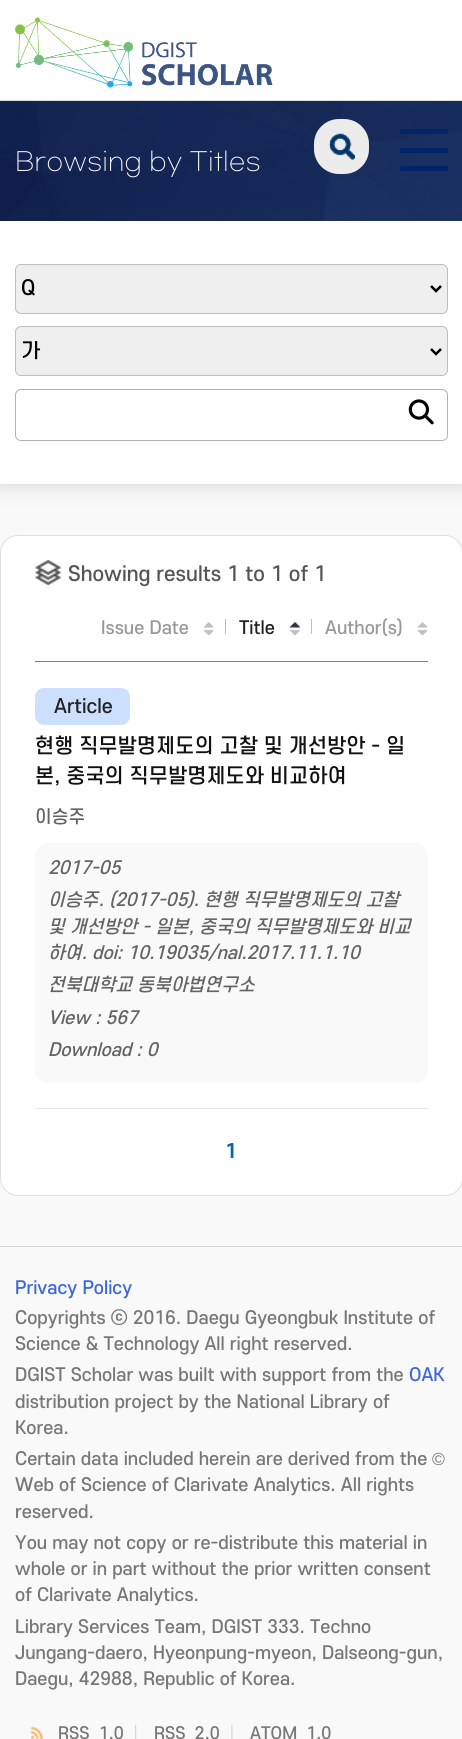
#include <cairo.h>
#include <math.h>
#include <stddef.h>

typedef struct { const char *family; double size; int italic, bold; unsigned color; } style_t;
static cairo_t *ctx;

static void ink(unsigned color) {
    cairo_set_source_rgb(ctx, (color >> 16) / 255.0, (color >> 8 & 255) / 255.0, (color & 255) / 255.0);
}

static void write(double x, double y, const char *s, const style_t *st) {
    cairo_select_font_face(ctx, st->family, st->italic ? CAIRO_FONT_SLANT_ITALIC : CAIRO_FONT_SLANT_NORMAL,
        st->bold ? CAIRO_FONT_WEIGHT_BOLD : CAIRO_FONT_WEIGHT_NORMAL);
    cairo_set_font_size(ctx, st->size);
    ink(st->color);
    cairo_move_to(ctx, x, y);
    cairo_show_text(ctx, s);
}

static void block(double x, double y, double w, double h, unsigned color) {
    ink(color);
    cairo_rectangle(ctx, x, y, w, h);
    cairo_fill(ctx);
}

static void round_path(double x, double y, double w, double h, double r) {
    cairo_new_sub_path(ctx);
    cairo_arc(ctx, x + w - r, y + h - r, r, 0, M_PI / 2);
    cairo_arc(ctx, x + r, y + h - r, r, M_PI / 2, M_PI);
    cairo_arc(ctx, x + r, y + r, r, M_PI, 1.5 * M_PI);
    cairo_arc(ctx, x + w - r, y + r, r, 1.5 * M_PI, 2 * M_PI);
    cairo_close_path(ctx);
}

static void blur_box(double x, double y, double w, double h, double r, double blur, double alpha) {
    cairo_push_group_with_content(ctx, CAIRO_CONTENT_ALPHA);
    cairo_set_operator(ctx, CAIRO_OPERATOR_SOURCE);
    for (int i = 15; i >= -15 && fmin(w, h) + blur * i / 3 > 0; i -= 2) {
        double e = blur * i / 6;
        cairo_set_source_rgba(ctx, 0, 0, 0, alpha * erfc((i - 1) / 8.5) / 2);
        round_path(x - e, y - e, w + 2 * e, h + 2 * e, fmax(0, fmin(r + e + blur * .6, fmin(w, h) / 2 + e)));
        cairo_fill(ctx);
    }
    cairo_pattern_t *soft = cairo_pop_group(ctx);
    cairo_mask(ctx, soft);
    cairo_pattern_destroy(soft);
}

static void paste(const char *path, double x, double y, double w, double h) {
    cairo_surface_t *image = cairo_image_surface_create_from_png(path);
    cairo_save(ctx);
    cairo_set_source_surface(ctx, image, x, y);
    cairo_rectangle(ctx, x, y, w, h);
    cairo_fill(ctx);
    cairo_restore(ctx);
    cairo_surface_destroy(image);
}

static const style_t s1 = {"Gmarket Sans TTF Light", 25, 0, 0, 0xffffff};
static const style_t s2 = {"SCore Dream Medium", 20, 0, 0, 0x000000};
static const style_t s3 = {"SCore Dream Medium", 20, 0, 0, 0x555555};
static const style_t s4 = {"SCore Dream Medium", 17.5, 0, 0, 0x999999};
static const style_t s5 = {"SCore Dream Medium", 17.5, 0, 0, 0x222222};
static const style_t s6 = {"SCore Dream Medium", 19, 0, 0, 0x222222};
static const style_t s7 = {"SCore Dream Medium", 20, 0, 0, 0x111111};
static const style_t s8 = {"SCore Dream Medium", 17.5, 0, 0, 0x636363};
static const style_t s9 = {"SCore Dream Medium", 17.5, 1, 0, 0x636363};
static const style_t s10 = {"SCore Dream", 19, 0, 1, 0x0068aa};
static const style_t s11 = {"SCore Dream Medium", 17.5, 0, 0, 0x3967dc};
static const style_t s12 = {"SCore Dream Medium", 17.5, 0, 0, 0x777777};
static const style_t s13 = {"Liberation Sans", 17.5, 0, 0, 0x777777};
static const style_t s14 = {"SCore Dream Medium", 16.25, 0, 0, 0x777777};

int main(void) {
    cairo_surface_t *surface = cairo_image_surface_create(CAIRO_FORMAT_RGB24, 462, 1739);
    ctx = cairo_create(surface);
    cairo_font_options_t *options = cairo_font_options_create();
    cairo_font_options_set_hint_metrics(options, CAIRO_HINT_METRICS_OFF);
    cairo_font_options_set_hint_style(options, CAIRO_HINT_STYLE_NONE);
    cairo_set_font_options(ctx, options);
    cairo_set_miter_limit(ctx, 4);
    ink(0xf9f9f9);
    cairo_paint(ctx);
    block(0, 0, 462, 100, 0xffffff);
    block(0, 100, 462, 1, 0xdddddd);
    paste("pic1.png", 15, 17, 258, 71);
    paste("pic3.png", 0, 101, 462, 120);
    ink(0xececec);
    round_path(314, 119, 55, 55, 25);
    cairo_fill(ctx);
    paste("pic2.png", 328, 133, 27, 27);
    block(400, 129, 48, 5, 0x00256c);
    block(400, 148, 48, 5, 0x00256c);
    block(400, 166, 48, 5, 0x00256c);
    write(15, 169, "Browsing by Titles", &s1);
    ink(0x484848);
    blur_box(0, 224, 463, 262, 0, 9, 0.2);
    block(0, 221, 462, 263, 0xffffff);
    ink(0xefefef);
    round_path(15.5, 264.5, 432, 49, 5.5);
    cairo_fill_preserve(ctx);
    ink(0xbebebe);
    cairo_set_line_width(ctx, 1);
    cairo_stroke(ctx);
    cairo_new_path(ctx);
    cairo_move_to(ctx, 431, 286);
    cairo_line_to(ctx, 436, 291);
    cairo_line_to(ctx, 441, 286);
    ink(0x000000);
    cairo_set_line_width(ctx, 2.5);
    cairo_stroke(ctx);
    write(21, 295, "Q", &s2);
    ink(0xefefef);
    round_path(15.5, 326.5, 432, 49, 5.5);
    cairo_fill_preserve(ctx);
    ink(0xbebebe);
    cairo_set_line_width(ctx, 1);
    cairo_stroke(ctx);
    cairo_new_path(ctx);
    cairo_move_to(ctx, 431, 349);
    cairo_line_to(ctx, 436, 354);
    cairo_line_to(ctx, 441, 349);
    ink(0x000000);
    cairo_set_line_width(ctx, 2.5);
    cairo_stroke(ctx);
    write(21, 358, "가", &s2);
    round_path(15.5, 389.5, 432, 51, 5.5);
    ink(0xb2b2b2);
    cairo_set_line_width(ctx, 1);
    cairo_stroke(ctx);
    paste("pic4.png", 408, 399, 26, 26);
    ink(0xffffff);
    round_path(0.5, 535.5, 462, 660, 17.5);
    cairo_fill_preserve(ctx);
    ink(0xdfdfdf);
    cairo_stroke(ctx);
    block(35, 661, 393, 1, 0x7e7e7e);
    paste("pic5.png", 35, 560, 27, 25);
    write(68, 581, "Showing results 1 to 1 of 1", &s3);
    paste("pic6.png", 203, 622, 11, 13);
    write(101, 634, "Issue Date", &s4);
    block(225, 619, 1, 15, 0xbfbfbf);
    paste("pic7.png", 290, 622, 10, 13);
    write(239, 634, "Title", &s5);
    block(311, 619, 1, 15, 0xbfbfbf);
    paste("pic8.png", 417, 622, 11, 13);
    write(325, 634, "Author(s)", &s4);
    block(35, 1108, 393, 1, 0xececec);
    ink(0xccdfff);
    round_path(35, 688, 95, 37, 9);
    cairo_fill(ctx);
    write(54, 713, "Article", &s6);
    write(35, 753, "현행 직무발명제도의 고찰 및 개선방안 - 일", &s7);
    write(35, 783, "본, 중국의 직무발명제도와 비교하여", &s7);
    write(35, 823, "이승주", &s8);
    ink(0xf9f9f9);
    round_path(35, 843, 393, 240, 13);
    cairo_fill(ctx);
    write(48, 874, "2017-05", &s9);
    write(48, 906, "이승주. (2017-05). 현행 직무발명제도의 고찰", &s9);
    write(48, 933, "및 개선방안 - 일본, 중국의 직무발명제도와 비교", &s9);
    write(48, 959, "하여. doi: 10.19035/nal.2017.11.1.10", &s9);
    write(48, 991, "전북대학교 동북아법연구소", &s9);
    write(48, 1024, "View : 567", &s9);
    write(48, 1056, "Download : 0", &s9);
    write(225, 1158, "1", &s10);
    block(0, 1246, 462, 1, 0xd8d8d8);
    write(15, 1294, "Privacy Policy", &s11);
    write(15, 1324, "Copyrights ⓒ 2016. Daegu Gyeongbuk Institute of", &s12);
    write(15, 1350, "Science & Technology All right reserved.", &s12);
    write(15, 1381, "DGIST Scholar was built with support from the", &s12);
    write(409, 1381, "OAK", &s11);
    write(15, 1408, "distribution project by the National Library of", &s12);
    write(15, 1434, "Korea.", &s12);
    write(15, 1465, "Certain data included herein are derived from the", &s12);
    write(432, 1465, "©", &s13);
    write(15, 1491, "Web of Science of Clarivate Analytics. All rights", &s12);
    write(15, 1518, "reserved.", &s12);
    write(15, 1549, "You may not copy or re-distribute this material in", &s12);
    write(15, 1575, "whole or in part without the prior written consent", &s12);
    write(15, 1601, "of Clarivate Analytics.", &s12);
    write(15, 1633, "Library Services Team, DGIST 333. Techno", &s12);
    write(15, 1659, "Jungang-daero, Hyeonpung-myeon, Dalseong-gun,", &s12);
    write(15, 1685, "Daegu, 42988, Republic of Korea.", &s12);
    paste("pic9.png", 30, 1726, 14, 13);
    paste("pic10.png", 135, 1725, 2, 14);
    write(58, 1739, "RSS_1.0", &s14);
    paste("pic11.png", 231, 1725, 2, 14);
    write(154, 1739, "RSS_2.0", &s14);
    write(250, 1739, "ATOM_1.0", &s14);
    cairo_surface_write_to_png(surface, "screenshot.png");
    cairo_font_options_destroy(options);
    cairo_destroy(ctx);
    cairo_surface_destroy(surface);
    return 0;
}
